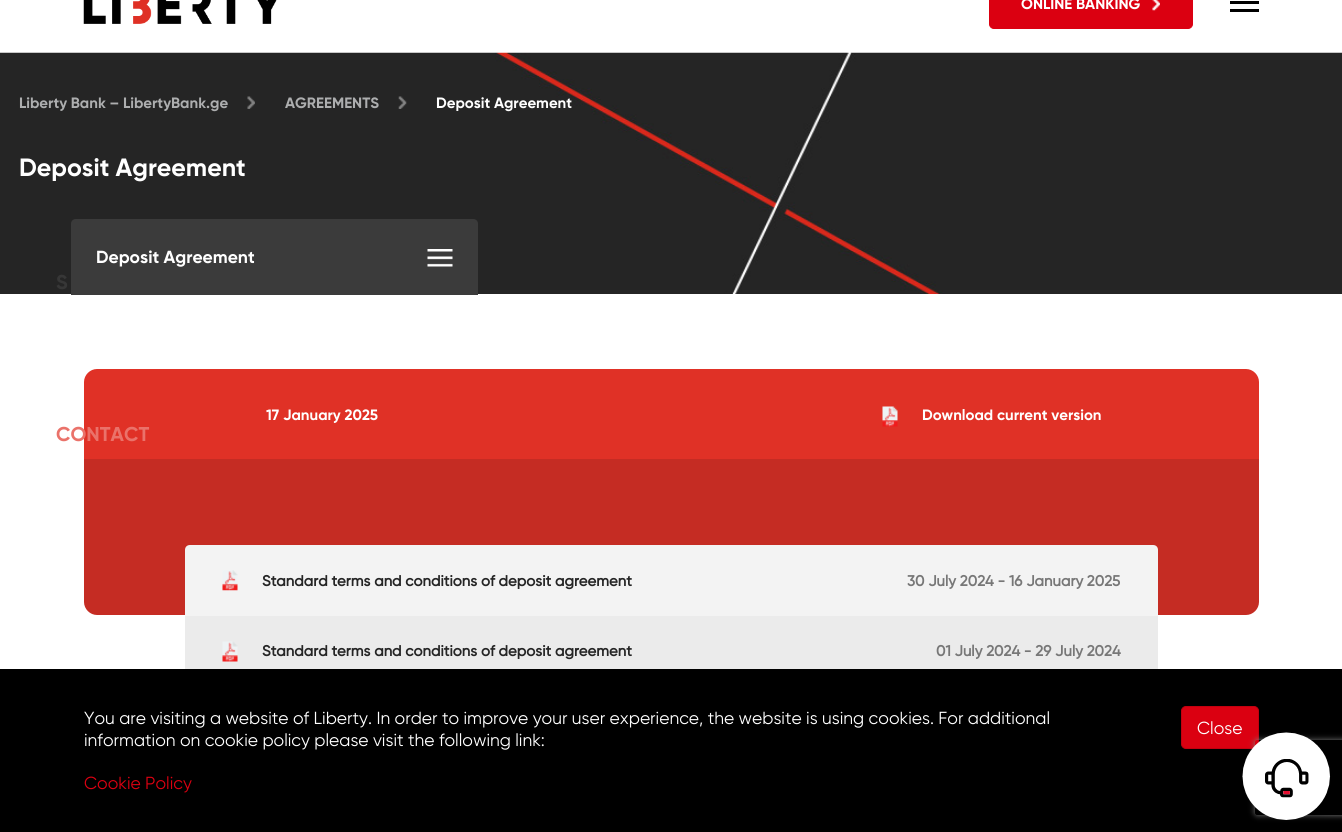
#include <cairo.h>
#include <math.h>
#include <stddef.h>

typedef struct { const char *family; double size; int italic, bold; unsigned color; } style_t;
static cairo_t *ctx;

static void ink(unsigned color) {
    cairo_set_source_rgb(ctx, (color >> 16) / 255.0, (color >> 8 & 255) / 255.0, (color & 255) / 255.0);
}

static void write(double x, double y, const char *s, const style_t *st) {
    cairo_select_font_face(ctx, st->family, st->italic ? CAIRO_FONT_SLANT_ITALIC : CAIRO_FONT_SLANT_NORMAL,
        st->bold ? CAIRO_FONT_WEIGHT_BOLD : CAIRO_FONT_WEIGHT_NORMAL);
    cairo_set_font_size(ctx, st->size);
    ink(st->color);
    cairo_move_to(ctx, x, y);
    cairo_show_text(ctx, s);
}

static void block(double x, double y, double w, double h, unsigned color) {
    ink(color);
    cairo_rectangle(ctx, x, y, w, h);
    cairo_fill(ctx);
}

static void round_path(double x, double y, double w, double h, double r) {
    cairo_new_sub_path(ctx);
    cairo_arc(ctx, x + w - r, y + h - r, r, 0, M_PI / 2);
    cairo_arc(ctx, x + r, y + h - r, r, M_PI / 2, M_PI);
    cairo_arc(ctx, x + r, y + r, r, M_PI, 1.5 * M_PI);
    cairo_arc(ctx, x + w - r, y + r, r, 1.5 * M_PI, 2 * M_PI);
    cairo_close_path(ctx);
}

static void blur_box(double x, double y, double w, double h, double r, double blur, double alpha) {
    cairo_push_group_with_content(ctx, CAIRO_CONTENT_ALPHA);
    cairo_set_operator(ctx, CAIRO_OPERATOR_SOURCE);
    for (int i = 15; i >= -15 && fmin(w, h) + blur * i / 3 > 0; i -= 2) {
        double e = blur * i / 6;
        cairo_set_source_rgba(ctx, 0, 0, 0, alpha * erfc((i - 1) / 8.5) / 2);
        round_path(x - e, y - e, w + 2 * e, h + 2 * e, fmax(0, fmin(r + e + blur * .6, fmin(w, h) / 2 + e)));
        cairo_fill(ctx);
    }
    cairo_pattern_t *soft = cairo_pop_group(ctx);
    cairo_mask(ctx, soft);
    cairo_pattern_destroy(soft);
}

static void paste(const char *path, double x, double y, double w, double h) {
    cairo_surface_t *image = cairo_image_surface_create_from_png(path);
    cairo_save(ctx);
    cairo_set_source_surface(ctx, image, x, y);
    cairo_rectangle(ctx, x, y, w, h);
    cairo_fill(ctx);
    cairo_restore(ctx);
    cairo_surface_destroy(image);
}

static const style_t s1 = {"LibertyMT", 15, 0, 1, 0xffffff};
static const style_t s2 = {"LibertyMT", 20, 0, 1, 0x373737};
static const style_t s3 = {"LibertyMT", 20, 0, 1, 0xea726a};
static const style_t s4 = {"LibertyMT", 15, 0, 1, 0xadaeaf};
static const style_t s5 = {"LibertyMT", 25, 0, 1, 0xffffff};
static const style_t s6 = {"LibertyMT", 17.5, 0, 1, 0xffffff};
static const style_t s7 = {"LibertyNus", 15, 0, 1, 0x252525};
static const style_t s8 = {"LibertyNus", 15, 0, 1, 0x777777};
static const style_t s9 = {"LibertyNus", 17.5, 0, 0, 0xffffff};
static const style_t s10 = {"LibertyNus", 17.5, 0, 0, 0xdb0011};

int main(void) {
    cairo_surface_t *surface = cairo_image_surface_create(CAIRO_FORMAT_RGB24, 1342, 832);
    ctx = cairo_create(surface);
    cairo_font_options_t *options = cairo_font_options_create();
    cairo_font_options_set_hint_metrics(options, CAIRO_HINT_METRICS_OFF);
    cairo_font_options_set_hint_style(options, CAIRO_HINT_STYLE_NONE);
    cairo_set_font_options(ctx, options);
    cairo_set_miter_limit(ctx, 4);
    ink(0xffffff);
    cairo_paint(ctx);
    paste("pic1.png", 83, 0, 194, 24);
    ink(0xdb0011);
    round_path(989.5, -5.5, 203, 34, 4.5);
    cairo_fill_preserve(ctx);
    cairo_set_line_width(ctx, 1);
    cairo_stroke(ctx);
    write(1021, 9, "ONLINE BANKING", &s1);
    paste("pic2.png", 1152, 0, 8, 11);
    block(1230, 1, 29, 3, 0x000000);
    block(1230, 9, 29, 3, 0x000000);
    paste("pic3.png", 0, 52, 1342, 242);
    write(56, 289, "S", &s2);
    ink(0xe03126);
    cairo_new_path(ctx);
    cairo_move_to(ctx, 97, 369);
    cairo_line_to(ctx, 1246, 369);
    cairo_curve_to(ctx, 1253, 369, 1259, 375, 1259, 382);
    cairo_line_to(ctx, 1259, 459);
    cairo_line_to(ctx, 84, 459);
    cairo_line_to(ctx, 84, 382);
    cairo_curve_to(ctx, 84, 375, 90, 369, 97, 369);
    cairo_close_path(ctx);
    cairo_fill(ctx);
    write(56, 441, "CONTACT", &s3);
    write(19, 108, "Liberty Bank – LibertyBank.ge", &s4);
    paste("pic4.png", 247, 96, 8, 13);
    write(285, 108, "AGREEMENTS", &s4);
    paste("pic5.png", 398, 96, 9, 13);
    write(436, 108, "Deposit Agreement", &s1);
    write(19, 176, "Deposit Agreement", &s5);
    ink(0x3b3b3b);
    cairo_new_path(ctx);
    cairo_move_to(ctx, 76, 219);
    cairo_line_to(ctx, 473, 219);
    cairo_curve_to(ctx, 476, 219, 478, 221, 478, 224);
    cairo_line_to(ctx, 478, 295);
    cairo_line_to(ctx, 71, 295);
    cairo_line_to(ctx, 71, 224);
    cairo_curve_to(ctx, 71, 221, 73, 219, 76, 219);
    cairo_close_path(ctx);
    cairo_fill(ctx);
    write(96, 263, "Deposit Agreement", &s6);
    paste("pic6.png", 427, 249, 26, 18);
    write(266, 420, "17 January 2025", &s1);
    paste("pic7.png", 882, 406, 16, 21);
    write(922, 420, "Download current version", &s1);
    ink(0xc52c23);
    cairo_new_path(ctx);
    cairo_move_to(ctx, 84, 459);
    cairo_line_to(ctx, 1259, 459);
    cairo_line_to(ctx, 1259, 602);
    cairo_curve_to(ctx, 1259, 609, 1253, 615, 1246, 615);
    cairo_line_to(ctx, 97, 615);
    cairo_curve_to(ctx, 90, 615, 84, 609, 84, 602);
    cairo_close_path(ctx);
    cairo_fill(ctx);
    ink(0xf3f3f3);
    cairo_new_path(ctx);
    cairo_move_to(ctx, 190, 545);
    cairo_line_to(ctx, 1153, 545);
    cairo_curve_to(ctx, 1156, 545, 1158, 547, 1158, 550);
    cairo_line_to(ctx, 1158, 616);
    cairo_line_to(ctx, 185, 616);
    cairo_line_to(ctx, 185, 550);
    cairo_curve_to(ctx, 185, 547, 187, 545, 190, 545);
    cairo_close_path(ctx);
    cairo_fill(ctx);
    paste("pic8.png", 222, 570, 16, 21);
    write(262, 586, "Standard terms and conditions of deposit agreement", &s7);
    write(907, 586, "30 July 2024 - 16 January 2025", &s8);
    block(185, 616, 973, 53, 0xebebeb);
    paste("pic9.png", 222, 641, 16, 21);
    write(262, 656, "Standard terms and conditions of deposit agreement", &s7);
    write(936, 656, "01 July 2024 - 29 July 2024", &s8);
    block(0, 669, 1342, 163, 0x000000);
    write(84, 724, "You are visiting a website of Liberty. In order to improve your user experience, the website is using cookies. For additional", &s9);
    write(84, 746, "information on cookie policy please visit the following link:", &s9);
    ink(0xdb0011);
    round_path(1181.5, 706.5, 77, 42, 4.5);
    cairo_fill_preserve(ctx);
    ink(0xc2000f);
    cairo_stroke(ctx);
    write(1197, 734, "Close", &s9);
    write(84, 789, "Cookie Policy", &s10);
    cairo_save(ctx);
    cairo_set_fill_rule(ctx, CAIRO_FILL_RULE_EVEN_ODD);
    cairo_new_path(ctx);
    cairo_move_to(ctx, 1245, 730);
    cairo_line_to(ctx, 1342, 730);
    cairo_line_to(ctx, 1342, 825);
    cairo_line_to(ctx, 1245, 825);
    cairo_close_path(ctx);
    cairo_move_to(ctx, 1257.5, 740);
    cairo_line_to(ctx, 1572.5, 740);
    cairo_curve_to(ctx, 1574, 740, 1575, 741, 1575, 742.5);
    cairo_line_to(ctx, 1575, 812.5);
    cairo_curve_to(ctx, 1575, 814, 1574, 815, 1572.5, 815);
    cairo_line_to(ctx, 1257.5, 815);
    cairo_curve_to(ctx, 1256, 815, 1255, 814, 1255, 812.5);
    cairo_line_to(ctx, 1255, 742.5);
    cairo_curve_to(ctx, 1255, 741, 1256, 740, 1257.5, 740);
    cairo_close_path(ctx);
    cairo_clip(ctx);
    ink(0x808080);
    blur_box(1255, 740, 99, 75, 2.5, 3, 1);
    cairo_restore(ctx);
    paste("pic10.png", 1242, 732, 89, 88);
    cairo_surface_write_to_png(surface, "screenshot.png");
    cairo_font_options_destroy(options);
    cairo_destroy(ctx);
    cairo_surface_destroy(surface);
    return 0;
}
